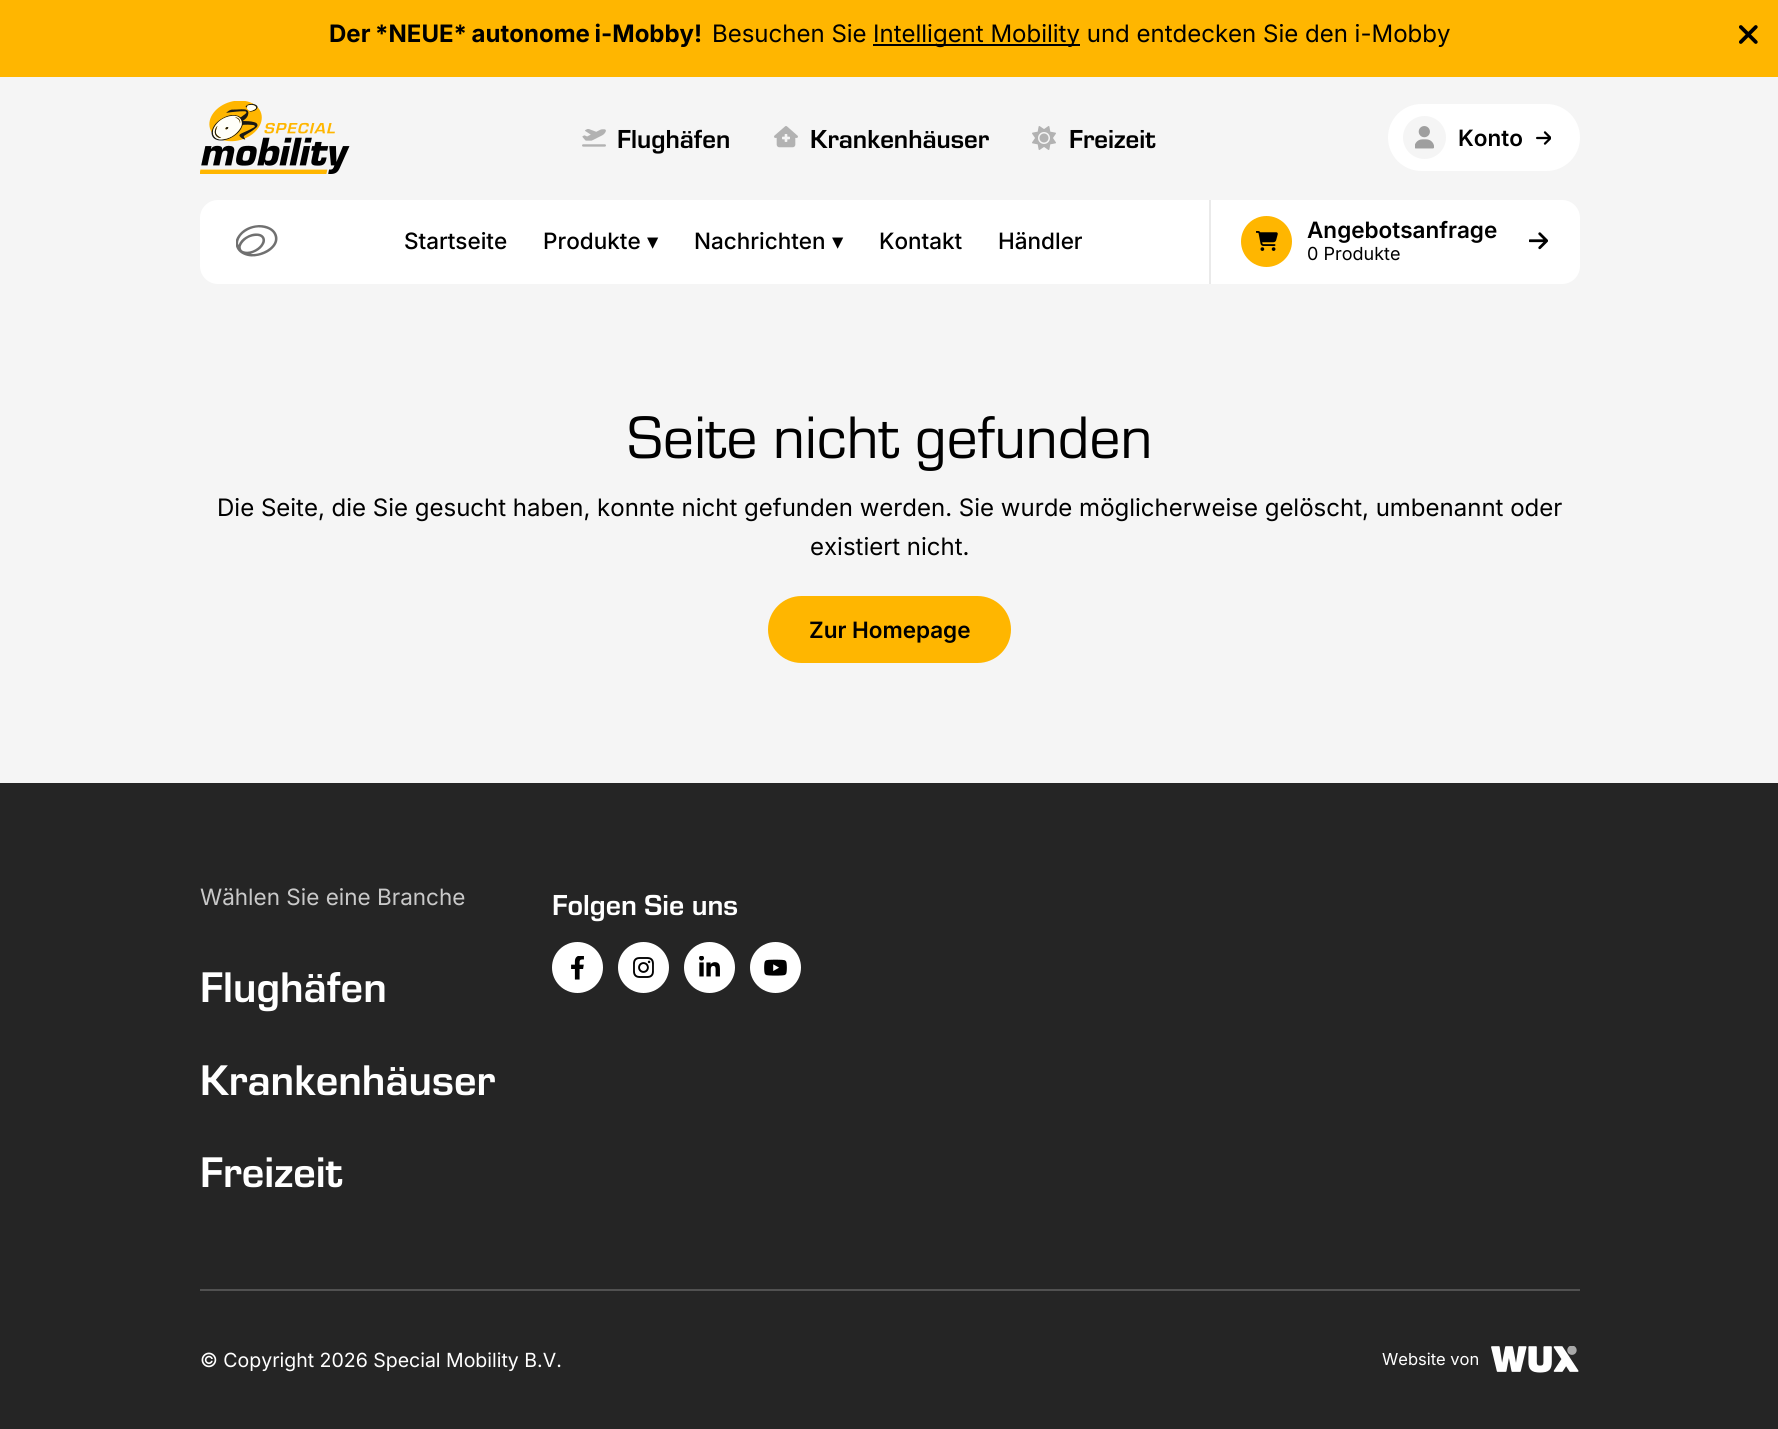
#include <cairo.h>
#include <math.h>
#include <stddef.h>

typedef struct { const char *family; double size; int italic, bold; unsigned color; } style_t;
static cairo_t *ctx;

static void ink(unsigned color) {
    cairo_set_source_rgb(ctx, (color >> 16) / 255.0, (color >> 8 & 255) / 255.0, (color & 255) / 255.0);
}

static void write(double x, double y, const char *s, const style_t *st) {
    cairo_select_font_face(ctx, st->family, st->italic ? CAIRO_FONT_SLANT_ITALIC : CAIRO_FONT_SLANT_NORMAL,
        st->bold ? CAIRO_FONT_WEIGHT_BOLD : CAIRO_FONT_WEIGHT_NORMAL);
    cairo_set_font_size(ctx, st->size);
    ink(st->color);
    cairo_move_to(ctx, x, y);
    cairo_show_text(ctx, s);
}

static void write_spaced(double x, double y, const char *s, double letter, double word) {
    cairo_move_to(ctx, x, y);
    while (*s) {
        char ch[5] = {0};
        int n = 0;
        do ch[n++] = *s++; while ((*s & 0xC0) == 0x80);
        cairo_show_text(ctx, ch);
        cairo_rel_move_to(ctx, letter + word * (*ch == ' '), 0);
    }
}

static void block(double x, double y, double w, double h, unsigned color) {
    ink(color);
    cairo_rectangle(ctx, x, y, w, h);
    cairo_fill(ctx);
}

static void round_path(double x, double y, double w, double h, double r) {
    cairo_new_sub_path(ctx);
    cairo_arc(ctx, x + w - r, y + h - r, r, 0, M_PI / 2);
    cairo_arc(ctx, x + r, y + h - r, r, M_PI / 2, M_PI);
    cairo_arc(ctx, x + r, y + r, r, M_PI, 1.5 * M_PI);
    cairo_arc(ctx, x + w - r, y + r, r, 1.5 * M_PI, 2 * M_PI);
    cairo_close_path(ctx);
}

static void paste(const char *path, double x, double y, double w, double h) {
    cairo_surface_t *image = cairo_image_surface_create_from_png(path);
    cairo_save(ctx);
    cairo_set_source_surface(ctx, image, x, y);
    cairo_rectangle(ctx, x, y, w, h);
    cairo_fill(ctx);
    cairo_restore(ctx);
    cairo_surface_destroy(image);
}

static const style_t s1 = {"Inter", 24, 0, 0, 0x000000};
static const style_t s2 = {"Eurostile", 27, 0, 1, 0x000000};
static const style_t s3 = {"Inter SemiBold", 22.5, 0, 0, 0x000000};
static const style_t s4 = {"Inter Medium", 22.5, 0, 0, 0x000000};
static const style_t s5 = {"DejaVu Sans", 22.5, 0, 0, 0x000000};
static const style_t s6 = {"Inter", 18, 0, 0, 0x000000};
static const style_t s7 = {"Eurostile", 62.25, 0, 0, 0x000000};
static const style_t s8 = {"Inter", 22.5, 0, 0, 0xc9c9c9};
static const style_t s9 = {"Eurostile", 44.5, 0, 1, 0xffffff};
static const style_t s10 = {"Eurostile", 30, 0, 1, 0xffffff};
static const style_t s11 = {"Inter", 19.5, 0, 0, 0xffffff};
static const style_t s12 = {"Inter", 16.5, 0, 0, 0xffffff};

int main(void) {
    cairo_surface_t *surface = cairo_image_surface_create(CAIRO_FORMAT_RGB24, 1778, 1429);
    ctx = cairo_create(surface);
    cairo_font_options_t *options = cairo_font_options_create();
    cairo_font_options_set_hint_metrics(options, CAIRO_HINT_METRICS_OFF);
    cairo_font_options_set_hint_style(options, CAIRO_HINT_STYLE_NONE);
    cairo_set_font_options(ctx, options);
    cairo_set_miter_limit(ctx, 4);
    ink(0xf5f5f5);
    cairo_paint(ctx);
    block(0, 0, 1778, 77, 0xffb600);
    cairo_select_font_face(ctx, "Inter", CAIRO_FONT_SLANT_NORMAL, CAIRO_FONT_WEIGHT_BOLD);
    cairo_set_font_size(ctx, 24);
    ink(0x000000);
    write_spaced(329, 42, "Der *NEUE* autonome i-Mobby!", 0, -1);
    write(712, 42, "Besuchen Sie", &s1);
    block(873, 44, 207, 2, 0x000000);
    write(873, 42, "Intelligent Mobility und entdecken Sie den i-Mobby", &s1);
    paste("pic1.png", 1739, 25, 19, 19);
    paste("pic2.png", 200, 101, 150, 73);
    paste("pic3.png", 582, 129, 24, 18);
    write(617, 148, "Flughäfen", &s2);
    paste("pic4.png", 774, 126, 24, 22);
    write(810, 148, "Krankenhäuser", &s2);
    paste("pic5.png", 1032, 126, 24, 24);
    write(1069, 148, "Freizeit", &s2);
    ink(0xffffff);
    round_path(1388, 104, 192, 67, 33.5);
    cairo_fill(ctx);
    ink(0xf5f5f5);
    cairo_arc(ctx, 1424.5, 137.5, 21.5, 0, 2 * M_PI);
    cairo_fill(ctx);
    paste("pic6.png", 1415, 126, 19, 23);
    write(1458, 146, "Konto", &s3);
    paste("pic7.png", 1536, 131, 15, 14);
    ink(0xffffff);
    round_path(200, 200, 1380, 84, 18);
    cairo_fill(ctx);
    paste("pic8.png", 236, 225, 42, 32);
    write(404, 249, "Startseite", &s4);
    write(543, 249, "Produkte", &s4);
    write(647, 249, "▾", &s5);
    write(694, 249, "Nachrichten", &s4);
    write(832, 249, "▾", &s5);
    write(879, 249, "Kontakt", &s4);
    write(998, 249, "Händler", &s4);
    block(1209, 200, 2, 84, 0xeaeaea);
    ink(0xffb600);
    cairo_new_path(ctx);
    cairo_arc(ctx, 1266.5, 241.5, 25.5, 0, 2 * M_PI);
    cairo_fill(ctx);
    paste("pic9.png", 1256, 231, 22, 20);
    write(1307, 238, "Angebotsanfrage", &s3);
    write(1307, 260, "0 Produkte", &s6);
    paste("pic10.png", 1529, 232, 19, 18);
    write(627, 458, "Seite nicht gefunden", &s7);
    write(217, 516, "Die Seite, die Sie gesucht haben, konnte nicht gefunden werden. Sie wurde möglicherweise gelöscht, umbenannt oder", &s1);
    write(810, 555, "existiert nicht.", &s1);
    ink(0xffb600);
    round_path(768, 596, 243, 67, 33.5);
    cairo_fill(ctx);
    write(809, 638, "Zur Homepage", &s3);
    block(0, 783, 1778, 646, 0x252525);
    write(200, 905, "Wählen Sie eine Branche", &s8);
    write(200, 1002, "Flughäfen", &s9);
    write(200, 1095, "Krankenhäuser", &s9);
    write(200, 1187, "Freizeit", &s9);
    write(552, 915, "Folgen Sie uns", &s10);
    cairo_new_path(ctx);
    cairo_arc(ctx, 577.5, 967.5, 25.5, 0, 2 * M_PI);
    cairo_fill(ctx);
    paste("pic11.png", 571, 956, 13, 24);
    cairo_arc(ctx, 643.5, 967.5, 25.5, 0, 2 * M_PI);
    cairo_fill(ctx);
    paste("pic12.png", 633, 957, 21, 21);
    cairo_arc(ctx, 709.5, 967.5, 25.5, 0, 2 * M_PI);
    cairo_fill(ctx);
    paste("pic13.png", 699, 956, 21, 21);
    cairo_arc(ctx, 775.5, 967.5, 25.5, 0, 2 * M_PI);
    cairo_fill(ctx);
    paste("pic14.png", 764, 959, 23, 17);
    block(200, 1289, 1380, 2, 0x515151);
    write(200, 1367, "© Copyright 2026 Special Mobility B.V.", &s11);
    write(1382, 1365, "Website von", &s12);
    paste("pic15.png", 1491, 1346, 88, 27);
    cairo_surface_write_to_png(surface, "screenshot.png");
    cairo_font_options_destroy(options);
    cairo_destroy(ctx);
    cairo_surface_destroy(surface);
    return 0;
}
